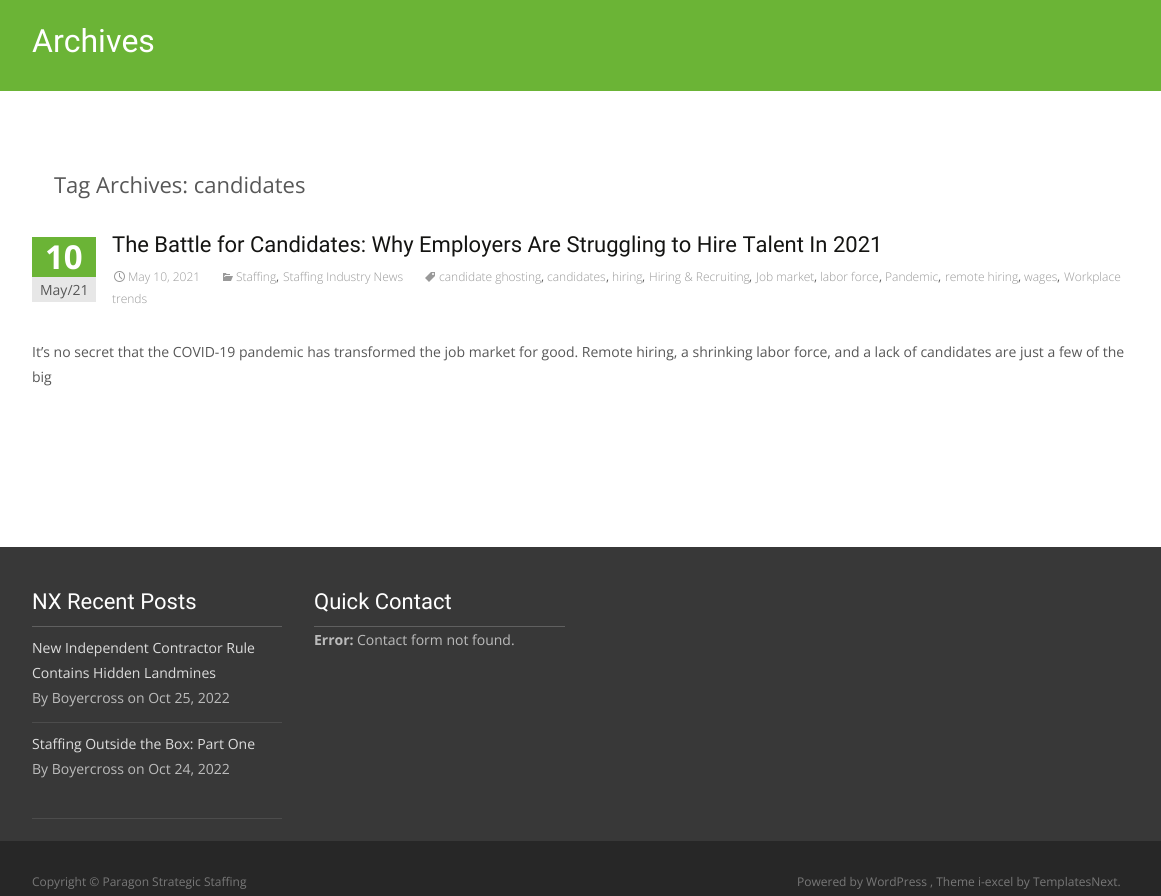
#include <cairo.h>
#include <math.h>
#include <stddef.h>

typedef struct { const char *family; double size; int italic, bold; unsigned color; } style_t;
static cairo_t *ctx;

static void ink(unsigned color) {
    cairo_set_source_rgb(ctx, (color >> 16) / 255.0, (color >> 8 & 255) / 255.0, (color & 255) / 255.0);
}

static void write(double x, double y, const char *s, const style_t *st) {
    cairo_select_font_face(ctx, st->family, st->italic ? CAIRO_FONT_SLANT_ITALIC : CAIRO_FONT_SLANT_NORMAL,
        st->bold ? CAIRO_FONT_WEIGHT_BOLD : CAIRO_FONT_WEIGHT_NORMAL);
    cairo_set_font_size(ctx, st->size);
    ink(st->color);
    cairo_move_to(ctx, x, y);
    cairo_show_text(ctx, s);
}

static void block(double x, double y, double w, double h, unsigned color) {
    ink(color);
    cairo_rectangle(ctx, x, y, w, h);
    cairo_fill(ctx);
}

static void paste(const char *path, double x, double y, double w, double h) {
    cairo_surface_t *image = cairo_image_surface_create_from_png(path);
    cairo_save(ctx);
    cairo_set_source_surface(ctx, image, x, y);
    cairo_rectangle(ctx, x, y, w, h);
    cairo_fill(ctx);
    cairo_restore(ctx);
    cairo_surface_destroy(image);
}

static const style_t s1 = {"Roboto", 32, 0, 0, 0xffffff};
static const style_t s2 = {"Open Sans", 22, 0, 0, 0x575757};
static const style_t s3 = {"Roboto", 22, 0, 0, 0x141412};
static const style_t s4 = {"Open Sans Light", 12, 0, 0, 0x999999};
static const style_t s5 = {"Open Sans", 12, 0, 0, 0x575757};
static const style_t s6 = {"Open Sans", 14, 0, 0, 0x575757};
static const style_t s7 = {"Open Sans", 33, 0, 1, 0xffffff};
static const style_t s8 = {"Roboto", 22, 0, 0, 0xffffff};
static const style_t s9 = {"Open Sans", 14, 0, 0, 0xdddddd};
static const style_t s10 = {"Open Sans", 14, 0, 0, 0xbbbbbb};
static const style_t s11 = {"Open Sans", 14, 0, 1, 0xbbbbbb};
static const style_t s12 = {"Open Sans", 12, 0, 0, 0x777777};

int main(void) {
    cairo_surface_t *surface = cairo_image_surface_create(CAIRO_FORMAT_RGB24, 1161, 896);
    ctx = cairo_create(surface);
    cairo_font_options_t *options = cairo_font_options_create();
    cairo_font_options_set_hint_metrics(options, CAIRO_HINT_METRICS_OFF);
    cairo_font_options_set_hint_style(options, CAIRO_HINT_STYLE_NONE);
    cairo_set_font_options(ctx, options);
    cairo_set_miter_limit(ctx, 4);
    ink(0xffffff);
    cairo_paint(ctx);
    block(0, 0, 1161, 91, 0x6bb436);
    write(32, 52, "Archives", &s1);
    write(54, 193, "Tag Archives: candidates", &s2);
    write(112, 252, "The Battle for Candidates: Why Employers Are Struggling to Hire Talent In 2021", &s3);
    paste("pic1.png", 425, 272, 10, 10);
    write(439, 281, "candidate ghosting", &s4);
    write(541, 281, ",", &s5);
    write(547, 281, "candidates", &s4);
    write(606, 281, ",", &s5);
    write(612, 281, "hiring", &s4);
    write(642, 281, ",", &s5);
    write(649, 281, "Hiring & Recruiting", &s4);
    write(749, 281, ",", &s5);
    write(756, 281, "Job market", &s4);
    write(814, 281, ",", &s5);
    write(820, 281, "labor force", &s4);
    write(879, 281, ",", &s5);
    write(885, 281, "Pandemic", &s4);
    write(938, 281, ",", &s5);
    write(945, 281, "remote hiring", &s4);
    write(1018, 281, ",", &s5);
    write(1024, 281, "wages", &s4);
    write(1057, 281, ",", &s5);
    write(1064, 281, "Workplace", &s4);
    write(112, 303, "trends", &s4);
    paste("pic2.png", 114, 271, 11, 11);
    write(128, 281, "May 10, 2021", &s4);
    paste("pic3.png", 223, 273, 10, 8);
    write(236, 281, "Staffing", &s4);
    write(276, 281, ",", &s5);
    write(283, 281, "Staffing Industry News", &s4);
    write(32, 357, "It’s no secret that the COVID-19 pandemic has transformed the job market for good. Remote hiring, a shrinking labor force, and a lack of candidates are just a few of the", &s6);
    write(32, 382, "big", &s6);
    block(32, 237, 64, 40, 0x6bb436);
    write(45, 269, "10", &s7);
    block(32, 277, 64, 25, 0xe7e7e7);
    write(40, 295, "May/21", &s6);
    block(0, 841, 1161, 55, 0x272727);
    block(0, 547, 1161, 294, 0x383838);
    block(32, 626, 250, 1, 0x606060);
    write(32, 609, "NX Recent Posts", &s8);
    block(32, 722, 250, 1, 0x4c4c4c);
    write(32, 653, "New Independent Contractor Rule", &s9);
    write(32, 678, "Contains Hidden Landmines", &s9);
    write(32, 703, "By Boyercross on Oct 25, 2022", &s10);
    block(32, 818, 250, 1, 0x4c4c4c);
    write(32, 749, "Staffing Outside the Box: Part One", &s9);
    write(32, 774, "By Boyercross on Oct 24, 2022", &s10);
    block(314, 626, 251, 1, 0x606060);
    write(314, 609, "Quick Contact", &s8);
    write(314, 645, "Error:", &s11);
    write(357, 645, "Contact form not found.", &s10);
    write(32, 886, "Copyright © Paragon Strategic Staffing", &s12);
    write(797, 886, "Powered by WordPress , Theme i-excel by TemplatesNext.", &s12);
    cairo_surface_write_to_png(surface, "screenshot.png");
    cairo_font_options_destroy(options);
    cairo_destroy(ctx);
    cairo_surface_destroy(surface);
    return 0;
}
